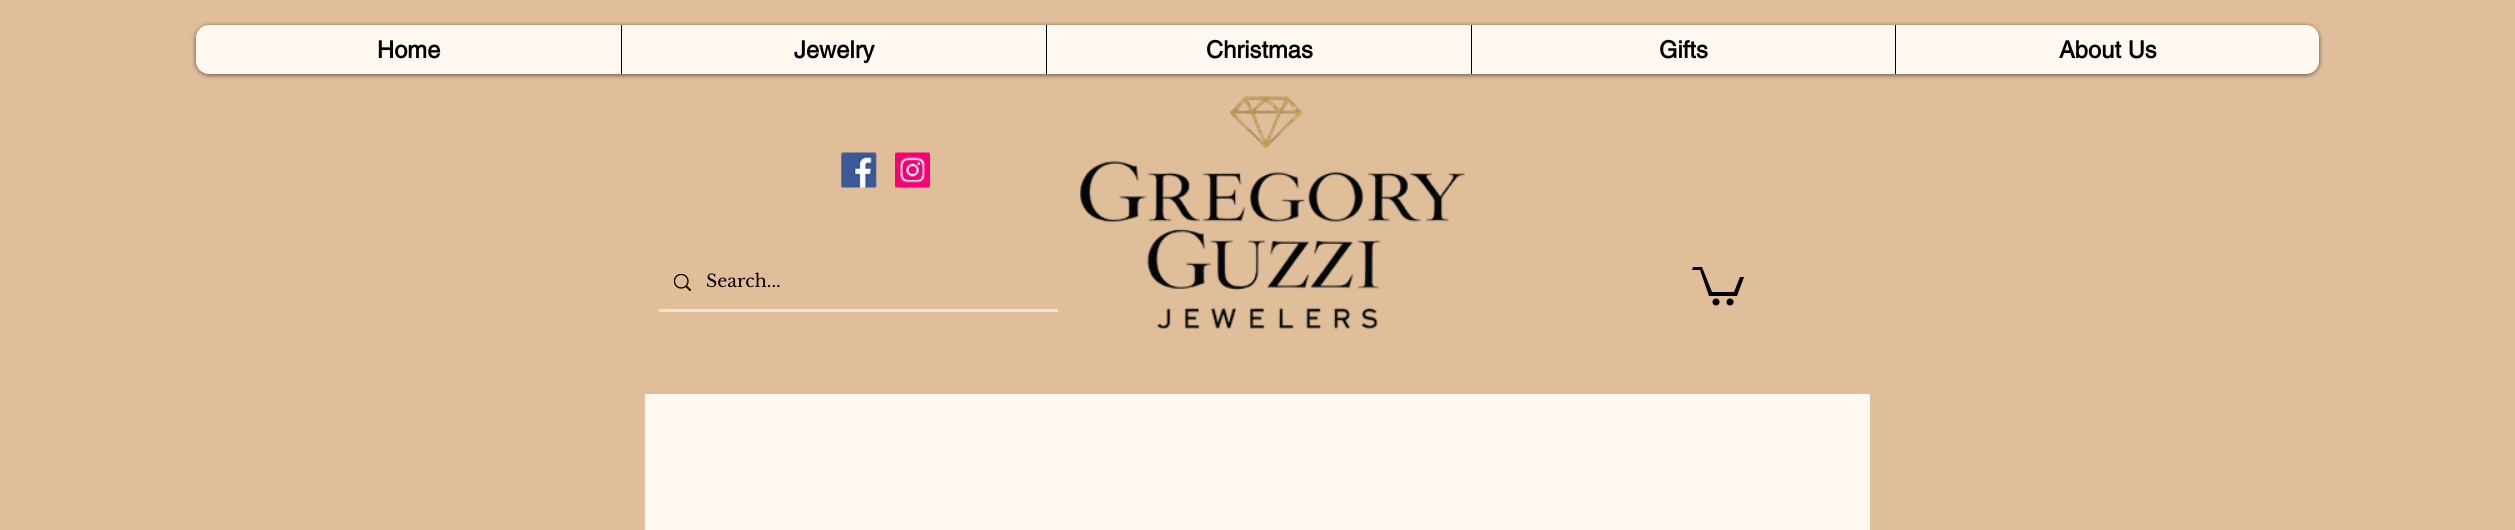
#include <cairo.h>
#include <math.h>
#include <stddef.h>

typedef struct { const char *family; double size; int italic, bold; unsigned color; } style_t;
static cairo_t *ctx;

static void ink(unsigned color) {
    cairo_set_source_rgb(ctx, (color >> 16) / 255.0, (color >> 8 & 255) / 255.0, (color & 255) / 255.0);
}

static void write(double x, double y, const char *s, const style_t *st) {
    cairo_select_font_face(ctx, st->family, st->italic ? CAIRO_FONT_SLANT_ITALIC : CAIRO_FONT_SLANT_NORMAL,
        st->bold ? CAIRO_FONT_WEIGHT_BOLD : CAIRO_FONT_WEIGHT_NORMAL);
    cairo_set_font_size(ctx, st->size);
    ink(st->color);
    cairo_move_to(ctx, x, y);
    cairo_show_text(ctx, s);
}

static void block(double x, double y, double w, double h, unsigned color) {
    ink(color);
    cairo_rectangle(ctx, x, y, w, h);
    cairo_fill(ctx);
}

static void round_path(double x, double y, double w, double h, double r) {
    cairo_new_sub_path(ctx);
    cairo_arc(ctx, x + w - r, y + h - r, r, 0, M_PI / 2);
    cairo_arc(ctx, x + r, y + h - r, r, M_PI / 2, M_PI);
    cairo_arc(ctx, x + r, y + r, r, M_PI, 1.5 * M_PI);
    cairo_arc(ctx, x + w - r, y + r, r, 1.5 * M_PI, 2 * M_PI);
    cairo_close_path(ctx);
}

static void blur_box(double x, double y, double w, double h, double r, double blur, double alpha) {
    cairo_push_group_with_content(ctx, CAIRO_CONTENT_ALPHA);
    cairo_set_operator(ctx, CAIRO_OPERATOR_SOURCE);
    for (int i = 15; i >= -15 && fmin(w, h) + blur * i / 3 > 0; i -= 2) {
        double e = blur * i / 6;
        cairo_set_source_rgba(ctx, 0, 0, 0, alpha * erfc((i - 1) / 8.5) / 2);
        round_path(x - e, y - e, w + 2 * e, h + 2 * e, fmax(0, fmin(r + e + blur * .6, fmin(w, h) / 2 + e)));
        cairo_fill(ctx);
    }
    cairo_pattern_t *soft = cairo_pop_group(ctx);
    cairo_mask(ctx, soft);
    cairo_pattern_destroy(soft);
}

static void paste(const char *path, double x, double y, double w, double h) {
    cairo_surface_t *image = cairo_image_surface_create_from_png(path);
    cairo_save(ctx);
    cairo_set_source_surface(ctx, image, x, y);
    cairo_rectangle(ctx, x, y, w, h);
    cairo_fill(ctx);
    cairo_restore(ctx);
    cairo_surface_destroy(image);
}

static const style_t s1 = {"helvetica", 23.75, 0, 1, 0x000000};
static const style_t s2 = {"Libre Baskerville", 17.5, 0, 0, 0x000000};

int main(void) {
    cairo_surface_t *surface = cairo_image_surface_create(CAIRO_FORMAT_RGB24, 2515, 530);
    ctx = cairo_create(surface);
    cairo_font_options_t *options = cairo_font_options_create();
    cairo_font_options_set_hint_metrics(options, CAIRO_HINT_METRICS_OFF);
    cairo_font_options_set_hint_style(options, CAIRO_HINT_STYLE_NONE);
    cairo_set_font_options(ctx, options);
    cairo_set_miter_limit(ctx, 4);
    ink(0xe0be9a);
    cairo_paint(ctx);
    ink(0x000000);
    blur_box(196, 26, 2123, 49, 13, 2.5, 0.6);
    ink(0xfff8f1);
    round_path(196, 25, 2123, 49, 13);
    cairo_fill(ctx);
    write(377, 58, "Home", &s1);
    block(621, 25, 1, 49, 0x000000);
    write(794, 58, "Jewelry", &s1);
    block(1046, 25, 1, 49, 0x000000);
    write(1206, 58, "Christmas", &s1);
    block(1471, 25, 1, 49, 0x000000);
    write(1659, 58, "Gifts", &s1);
    block(1895, 25, 1, 49, 0x000000);
    write(2059, 58, "About Us", &s1);
    paste("pic1.png", 841, 152, 36, 36);
    paste("pic2.png", 895, 152, 35, 36);
    paste("pic3.png", 1080, 96, 385, 233);
    block(659, 309, 399, 3, 0xebe5d6);
    paste("pic4.png", 674, 274, 17, 17);
    write(706, 287, "Search...", &s2);
    cairo_new_path(ctx);
    cairo_move_to(ctx, 1744, 277);
    cairo_line_to(ctx, 1737, 296);
    cairo_line_to(ctx, 1709, 296);
    cairo_line_to(ctx, 1700, 270);
    cairo_line_to(ctx, 1692, 270);
    cairo_line_to(ctx, 1693, 267);
    cairo_line_to(ctx, 1702, 267);
    cairo_line_to(ctx, 1712, 292);
    cairo_line_to(ctx, 1734, 292);
    cairo_line_to(ctx, 1740, 277);
    cairo_fill(ctx);
    cairo_arc(ctx, 1730, 302, 3.5, 0, 2 * M_PI);
    cairo_fill(ctx);
    cairo_arc(ctx, 1716, 302, 3.5, 0, 2 * M_PI);
    cairo_fill(ctx);
    block(645, 394, 1225, 136, 0xfff8f1);
    cairo_surface_write_to_png(surface, "screenshot.png");
    cairo_font_options_destroy(options);
    cairo_destroy(ctx);
    cairo_surface_destroy(surface);
    return 0;
}
